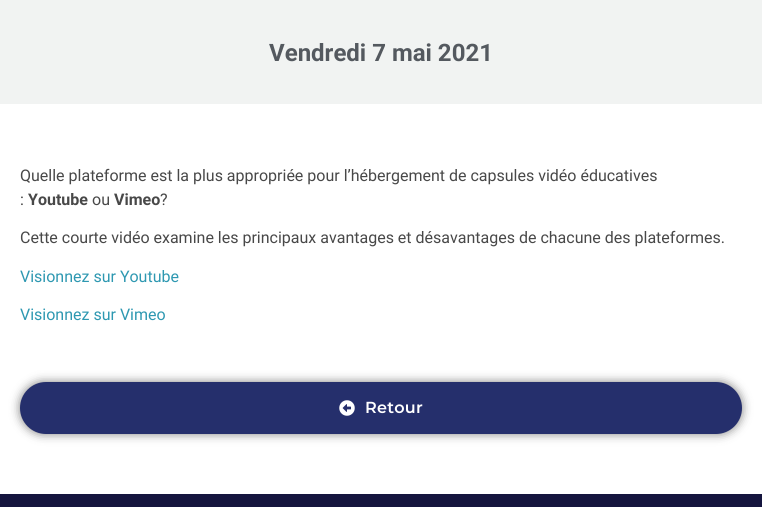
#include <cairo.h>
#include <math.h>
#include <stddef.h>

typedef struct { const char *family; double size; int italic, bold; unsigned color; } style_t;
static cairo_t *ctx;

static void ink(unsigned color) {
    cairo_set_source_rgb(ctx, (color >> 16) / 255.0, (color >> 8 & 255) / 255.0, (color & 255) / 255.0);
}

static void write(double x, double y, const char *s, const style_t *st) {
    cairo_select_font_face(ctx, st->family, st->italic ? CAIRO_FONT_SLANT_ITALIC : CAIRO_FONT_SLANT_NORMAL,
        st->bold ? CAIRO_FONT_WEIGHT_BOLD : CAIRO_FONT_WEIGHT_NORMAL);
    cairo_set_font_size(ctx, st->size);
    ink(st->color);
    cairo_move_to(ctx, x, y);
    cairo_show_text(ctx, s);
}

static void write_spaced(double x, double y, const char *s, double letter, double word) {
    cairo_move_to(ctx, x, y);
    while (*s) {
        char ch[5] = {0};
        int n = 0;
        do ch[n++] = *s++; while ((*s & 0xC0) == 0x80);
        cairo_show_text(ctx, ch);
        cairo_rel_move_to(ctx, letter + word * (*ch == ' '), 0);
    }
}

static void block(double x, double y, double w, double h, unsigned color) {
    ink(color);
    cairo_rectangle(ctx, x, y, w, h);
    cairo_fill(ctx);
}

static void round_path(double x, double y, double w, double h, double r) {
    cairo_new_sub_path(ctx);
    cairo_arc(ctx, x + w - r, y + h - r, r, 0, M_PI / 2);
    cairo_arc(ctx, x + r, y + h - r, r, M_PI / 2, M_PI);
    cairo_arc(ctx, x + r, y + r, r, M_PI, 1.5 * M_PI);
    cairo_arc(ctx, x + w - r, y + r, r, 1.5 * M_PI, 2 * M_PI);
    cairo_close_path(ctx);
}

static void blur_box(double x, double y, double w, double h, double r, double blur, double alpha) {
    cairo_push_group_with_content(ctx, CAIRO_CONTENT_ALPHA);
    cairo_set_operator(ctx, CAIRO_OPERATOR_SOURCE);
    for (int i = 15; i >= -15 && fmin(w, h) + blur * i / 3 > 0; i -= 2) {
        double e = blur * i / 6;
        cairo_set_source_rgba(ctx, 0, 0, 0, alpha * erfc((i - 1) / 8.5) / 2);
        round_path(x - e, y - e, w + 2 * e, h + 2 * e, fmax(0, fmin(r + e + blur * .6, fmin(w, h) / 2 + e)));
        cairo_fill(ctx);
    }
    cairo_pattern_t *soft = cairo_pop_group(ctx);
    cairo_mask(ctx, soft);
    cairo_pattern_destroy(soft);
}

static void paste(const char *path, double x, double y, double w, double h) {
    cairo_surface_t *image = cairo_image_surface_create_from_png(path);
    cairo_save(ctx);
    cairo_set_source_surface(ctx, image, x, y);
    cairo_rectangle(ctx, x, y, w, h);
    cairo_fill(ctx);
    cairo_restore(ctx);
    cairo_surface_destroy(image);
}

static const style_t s1 = {"Roboto", 24, 0, 1, 0x54595f};
static const style_t s2 = {"Roboto", 16, 0, 0, 0x484848};
static const style_t s3 = {"Roboto", 16, 0, 1, 0x484848};
static const style_t s4 = {"Roboto", 16, 0, 0, 0x2e98b1};

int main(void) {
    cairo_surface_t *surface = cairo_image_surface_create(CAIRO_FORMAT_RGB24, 762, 507);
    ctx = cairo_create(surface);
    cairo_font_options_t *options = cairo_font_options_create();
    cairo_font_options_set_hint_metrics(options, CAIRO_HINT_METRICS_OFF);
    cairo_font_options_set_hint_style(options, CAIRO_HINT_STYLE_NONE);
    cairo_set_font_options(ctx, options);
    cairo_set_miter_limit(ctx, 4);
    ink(0xffffff);
    cairo_paint(ctx);
    block(0, 0, 762, 104, 0xf1f3f2);
    write(269, 61, "Vendredi 7 mai 2021", &s1);
    write(20, 181, "Quelle plateforme est la plus appropriée pour l’hébergement de capsules vidéo éducatives", &s2);
    write(20, 205, ":", &s2);
    write(28, 205, "Youtube", &s3);
    write(92, 205, "ou", &s2);
    write(114, 205, "Vimeo", &s3);
    write(160, 205, "?", &s2);
    write(20, 243, "Cette courte vidéo examine les principaux avantages et désavantages de chacune des plateformes.", &s2);
    write(20, 282, "Visionnez sur Youtube", &s4);
    write(20, 320, "Visionnez sur Vimeo", &s4);
    ink(0x000000);
    blur_box(20, 382, 722, 52, 26, 5, 0.5);
    ink(0x252f6c);
    round_path(20, 382, 722, 52, 26);
    cairo_fill(ctx);
    paste("pic1.png", 339, 400, 16, 16);
    cairo_select_font_face(ctx, "Montserrat SemiBold", CAIRO_FONT_SLANT_NORMAL, CAIRO_FONT_WEIGHT_NORMAL);
    ink(0xffffff);
    write_spaced(365, 413, "Retour", 0.25, 0);
    block(0, 494, 762, 13, 0x15153e);
    cairo_surface_write_to_png(surface, "screenshot.png");
    cairo_font_options_destroy(options);
    cairo_destroy(ctx);
    cairo_surface_destroy(surface);
    return 0;
}
